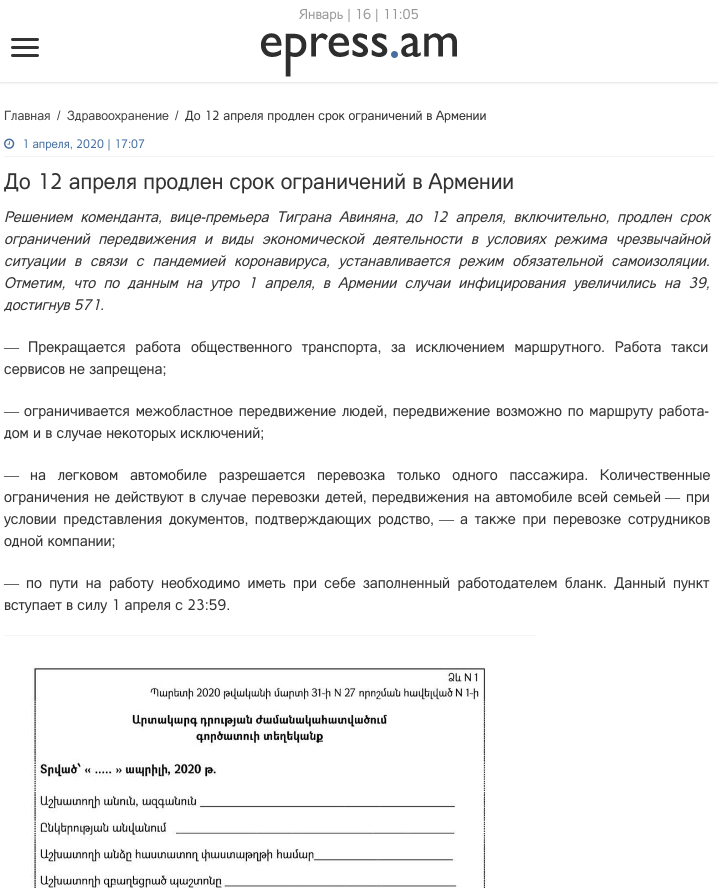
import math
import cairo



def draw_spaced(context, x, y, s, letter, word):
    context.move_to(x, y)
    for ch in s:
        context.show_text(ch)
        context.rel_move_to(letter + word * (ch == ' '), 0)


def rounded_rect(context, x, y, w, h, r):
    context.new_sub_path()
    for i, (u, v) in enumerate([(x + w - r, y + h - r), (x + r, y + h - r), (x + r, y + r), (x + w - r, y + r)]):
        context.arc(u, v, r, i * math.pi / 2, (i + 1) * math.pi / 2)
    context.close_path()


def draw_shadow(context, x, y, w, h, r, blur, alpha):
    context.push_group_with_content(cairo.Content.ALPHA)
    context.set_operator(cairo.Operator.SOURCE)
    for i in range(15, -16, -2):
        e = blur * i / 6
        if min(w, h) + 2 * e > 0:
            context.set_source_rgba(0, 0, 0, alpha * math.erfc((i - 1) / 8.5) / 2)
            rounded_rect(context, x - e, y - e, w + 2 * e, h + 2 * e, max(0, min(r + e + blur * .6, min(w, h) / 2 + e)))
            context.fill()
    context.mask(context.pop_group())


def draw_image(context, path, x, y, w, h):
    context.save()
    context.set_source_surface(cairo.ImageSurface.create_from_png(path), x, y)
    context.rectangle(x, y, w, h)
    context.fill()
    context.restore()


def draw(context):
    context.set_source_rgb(1, 1, 1)
    context.paint()
    context.save()
    context.rectangle(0, 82, 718, 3)
    context.clip()
    context.set_source_rgb(202 / 255, 202 / 255, 202 / 255)
    draw_shadow(context, 0, 0, 718, 82, 0, 1.5, 1)
    context.restore()
    draw_image(context, "images/1.png", 261, 33, 196, 44)
    context.set_source_rgb(51 / 255, 51 / 255, 51 / 255)
    rounded_rect(context, 11, 38, 28, 3, 1.5)
    context.fill()
    rounded_rect(context, 11, 46, 28, 3, 1.5)
    context.fill()
    rounded_rect(context, 11, 54, 28, 3, 1.5)
    context.fill()
    context.set_source_rgb(242 / 255, 242 / 255, 242 / 255)
    context.rectangle(4, 156, 710, 1)
    context.fill()
    draw_image(context, "images/2.png", 4, 138, 11, 11)
    draw_image(context, "images/3.png", 4, 635, 532, 253)
    context.select_font_face("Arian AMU")
    context.set_font_size(14)
    context.set_source_rgb(153 / 255, 153 / 255, 153 / 255)
    context.move_to(299, 19)
    context.show_text("Январь | 16 | 11:05")
    context.set_font_size(13)
    context.set_source_rgb(68 / 255, 68 / 255, 68 / 255)
    context.move_to(4, 120)
    context.show_text("Главная")
    context.set_source_rgb(51 / 255, 51 / 255, 51 / 255)
    context.move_to(57, 120)
    context.show_text("/")
    context.set_source_rgb(68 / 255, 68 / 255, 68 / 255)
    context.move_to(67, 120)
    context.show_text("Здравоохранение")
    context.set_source_rgb(51 / 255, 51 / 255, 51 / 255)
    context.move_to(175, 120)
    context.show_text("/")
    context.move_to(185, 120)
    context.show_text("До 12 апреля продлен срок ограничений в Армении")
    context.set_font_size(12)
    context.set_source_rgb(70 / 255, 111 / 255, 161 / 255)
    context.move_to(22, 148)
    context.show_text("1 апреля, 2020 | 17:07")
    context.set_font_size(22)
    context.set_source_rgb(51 / 255, 51 / 255, 51 / 255)
    context.move_to(4, 189)
    context.show_text("До 12 апреля продлен срок ограничений в Армении")
    context.select_font_face("Arian AMU", cairo.FontSlant.ITALIC)
    context.set_font_size(15)
    draw_spaced(context, 4, 222, "Решением коменданта, вице-премьера Тиграна Авиняна, до 12 апреля, включительно, продлен срок", 0, 3.75)
    draw_spaced(context, 4, 244, "ограничений передвижения и виды экономической деятельности в условиях режима чрезвычайной", 0, 4.5)
    draw_spaced(context, 4, 266, "ситуации в связи с пандемией коронавируса, устанавливается режим обязательной самоизоляции.", 0, 4.75)
    draw_spaced(context, 4, 288, "Отметим, что по данным на утро 1 апреля, в Армении случаи инфицирования увеличились на 39,", 0, 4)
    context.move_to(4, 310)
    context.show_text("достигнув 571.")
    context.select_font_face("Liberation Serif")
    context.move_to(4, 352)
    context.show_text("—")
    context.select_font_face("Arian AMU")
    draw_spaced(context, 28, 352, "Прекращается работа общественного транспорта, за исключением маршрутного. Работа такси", 0, 5.5)
    context.move_to(4, 374)
    context.show_text("сервисов не запрещена;")
    context.select_font_face("Liberation Serif")
    context.move_to(4, 416)
    context.show_text("—")
    context.select_font_face("Arian AMU")
    draw_spaced(context, 24, 416, "ограничивается межобластное передвижение людей, передвижение возможно по маршруту работа-", 0, 1.5)
    context.move_to(4, 438)
    context.show_text("дом и в случае некоторых исключений;")
    context.select_font_face("Liberation Serif")
    context.move_to(4, 480)
    context.show_text("—")
    context.select_font_face("Arian AMU")
    draw_spaced(context, 30, 480, "на легковом автомобиле разрешается перевозка только одного пассажира. Количественные", 0, 7.5)
    draw_spaced(context, 4, 502, "ограничения не действуют в случае перевозки детей, передвижения на автомобиле всей семьей", 0, 1)
    context.select_font_face("Liberation Serif")
    context.move_to(665, 502)
    context.show_text("—")
    context.select_font_face("Arian AMU")
    context.move_to(686, 502)
    context.show_text("при")
    draw_spaced(context, 4, 524, "условии представления документов, подтверждающих родство,", 0, 2.5)
    context.select_font_face("Liberation Serif")
    context.move_to(439, 524)
    context.show_text("—")
    context.select_font_face("Arian AMU")
    draw_spaced(context, 460, 524, "а также при перевозке сотрудников", 0, 2.5)
    context.move_to(4, 546)
    context.show_text("одной компании;")
    context.select_font_face("Liberation Serif")
    context.move_to(4, 588)
    context.show_text("—")
    context.select_font_face("Arian AMU")
    draw_spaced(context, 26, 588, "по пути на работу необходимо иметь при себе заполненный работодателем бланк. Данный пункт", 0, 3.1)
    context.move_to(4, 610)
    context.show_text("вступает в силу 1 апреля с 23:59.")


surface = cairo.ImageSurface(cairo.Format.RGB24, 718, 888)
context = cairo.Context(surface)
options = cairo.FontOptions()
options.set_hint_metrics(cairo.HintMetrics.OFF)
options.set_hint_style(cairo.HintStyle.NONE)
context.set_font_options(options)
context.set_miter_limit(4)
draw(context)
surface.write_to_png("out.png")
